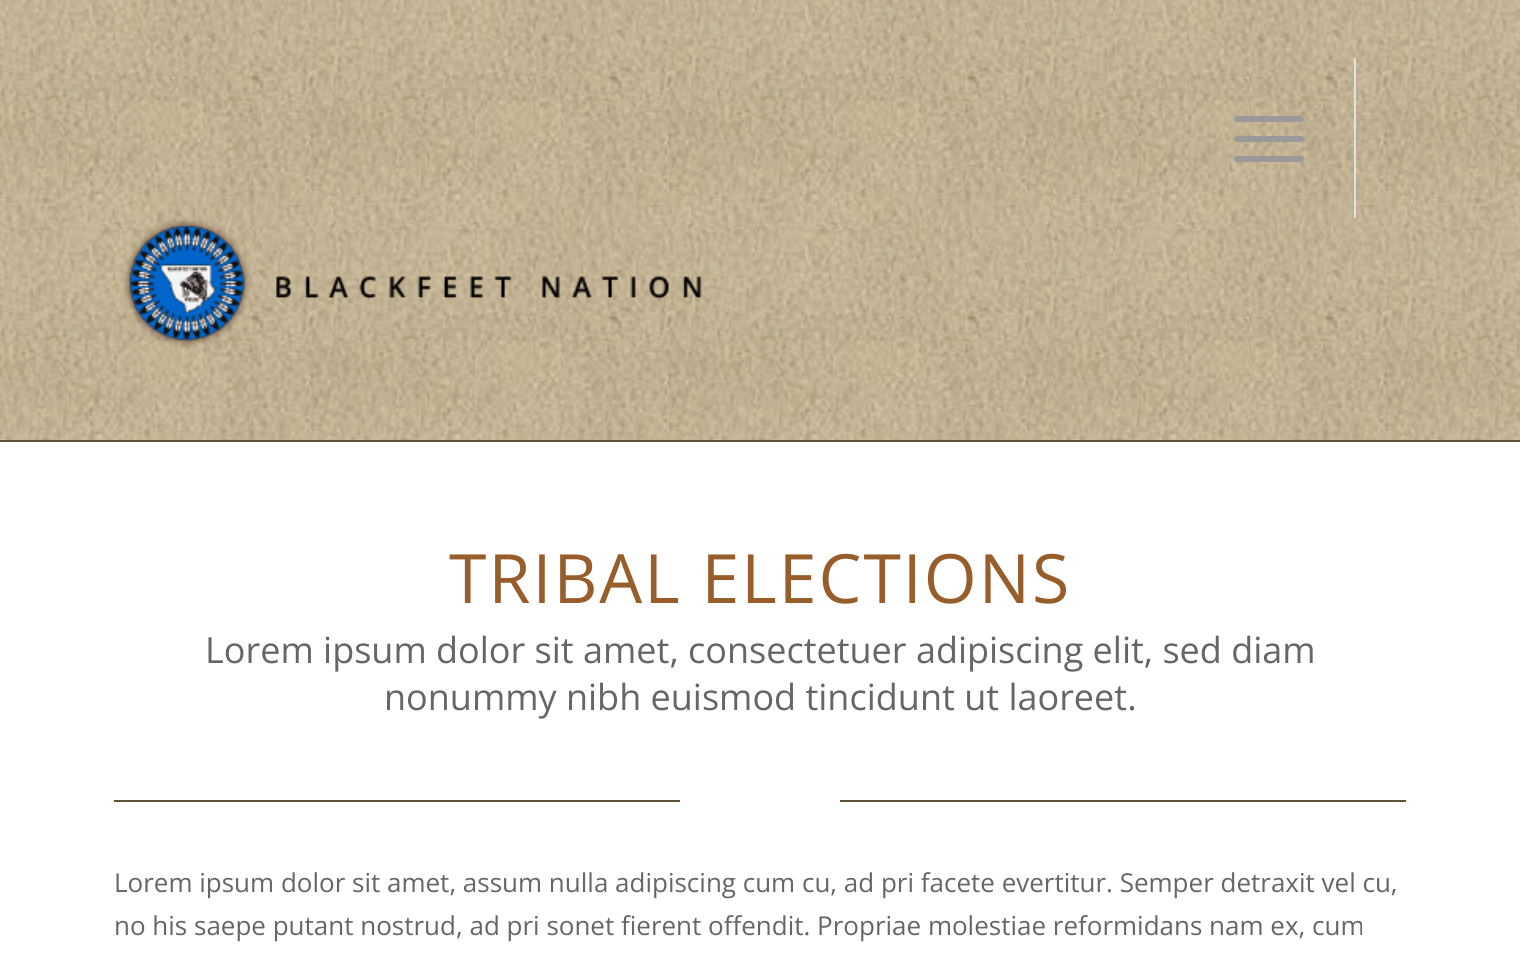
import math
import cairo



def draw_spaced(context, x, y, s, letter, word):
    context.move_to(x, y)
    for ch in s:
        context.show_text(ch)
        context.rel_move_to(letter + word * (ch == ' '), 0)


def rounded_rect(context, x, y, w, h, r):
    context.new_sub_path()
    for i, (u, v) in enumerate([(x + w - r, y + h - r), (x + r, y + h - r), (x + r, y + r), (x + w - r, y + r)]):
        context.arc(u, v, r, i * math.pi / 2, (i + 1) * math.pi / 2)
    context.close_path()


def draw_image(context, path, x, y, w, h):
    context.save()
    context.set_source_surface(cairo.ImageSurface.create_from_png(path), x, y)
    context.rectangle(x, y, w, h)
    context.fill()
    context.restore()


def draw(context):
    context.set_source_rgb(1, 1, 1)
    context.paint()
    draw_image(context, "images/1.png", 0, 0, 1520, 440)
    context.set_source_rgb(94 / 255, 83 / 255, 54 / 255)
    context.rectangle(0, 440, 1520, 2)
    context.fill()
    context.set_source_rgb(225 / 255, 225 / 255, 225 / 255)
    context.rectangle(1354, 58, 2, 160)
    context.fill()
    context.set_source_rgb(153 / 255, 153 / 255, 153 / 255)
    rounded_rect(context, 1234, 136, 70, 6, 3)
    context.fill()
    rounded_rect(context, 1234, 116, 70, 6, 3)
    context.fill()
    rounded_rect(context, 1234, 156, 70, 6, 3)
    context.fill()
    draw_image(context, "images/2.png", 122, 218, 580, 130)
    context.set_source_rgb(94 / 255, 83 / 255, 54 / 255)
    context.rectangle(114, 800, 1292, 2)
    context.fill()
    context.set_source_rgb(1, 1, 1)
    context.rectangle(680, 800, 160, 2)
    context.fill()
    context.select_font_face("Open Sans")
    context.set_font_size(68)
    context.set_source_rgb(151 / 255, 94 / 255, 43 / 255)
    draw_spaced(context, 449, 603, "TRIBAL ELECTIONS", 2, 0)
    context.set_font_size(36)
    context.set_source_rgb(102 / 255, 102 / 255, 102 / 255)
    context.move_to(205, 663)
    context.show_text("Lorem ipsum dolor sit amet, consectetuer adipiscing elit, sed diam")
    context.move_to(384, 710)
    context.show_text("nonummy nibh euismod tincidunt ut laoreet.")
    context.set_font_size(26)
    context.move_to(114, 892)
    context.show_text("Lorem ipsum dolor sit amet, assum nulla adipiscing cum cu, ad pri facete evertitur. Semper detraxit vel cu,")
    context.move_to(114, 935)
    context.show_text("no his saepe putant nostrud, ad pri sonet fierent offendit. Propriae molestiae reformidans nam ex, cum")


surface = cairo.ImageSurface(cairo.Format.RGB24, 1520, 953)
context = cairo.Context(surface)
options = cairo.FontOptions()
options.set_hint_metrics(cairo.HintMetrics.OFF)
options.set_hint_style(cairo.HintStyle.NONE)
context.set_font_options(options)
context.set_miter_limit(4)
draw(context)
surface.write_to_png("out.png")
